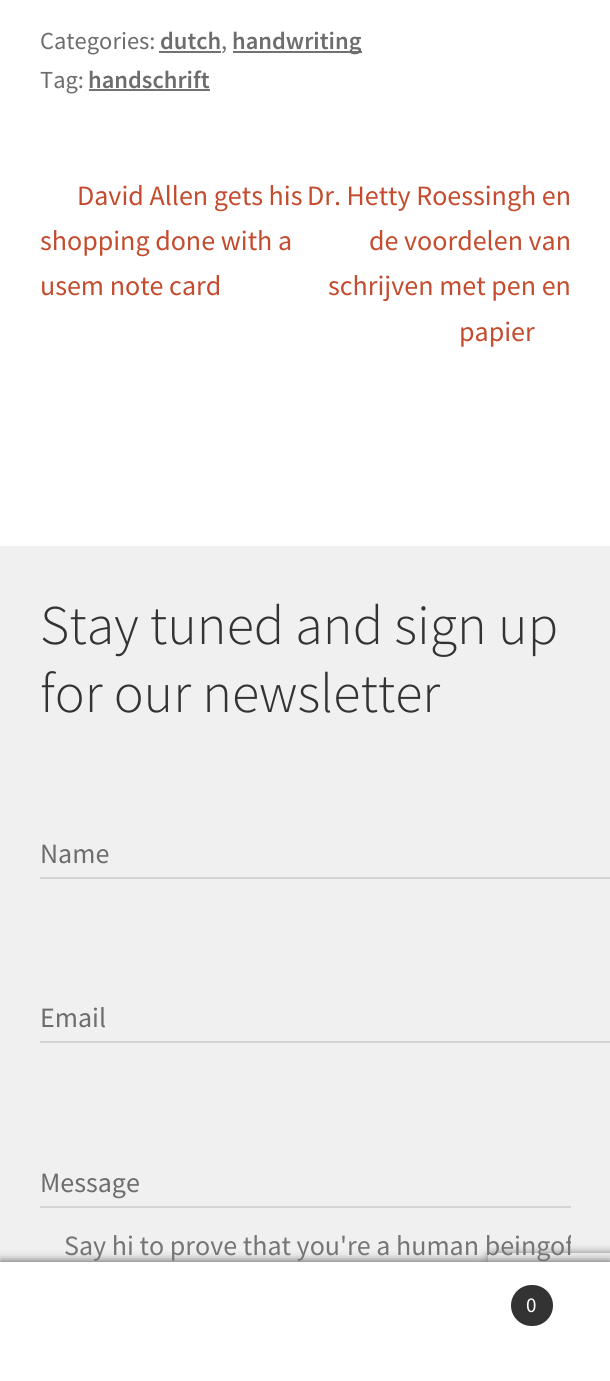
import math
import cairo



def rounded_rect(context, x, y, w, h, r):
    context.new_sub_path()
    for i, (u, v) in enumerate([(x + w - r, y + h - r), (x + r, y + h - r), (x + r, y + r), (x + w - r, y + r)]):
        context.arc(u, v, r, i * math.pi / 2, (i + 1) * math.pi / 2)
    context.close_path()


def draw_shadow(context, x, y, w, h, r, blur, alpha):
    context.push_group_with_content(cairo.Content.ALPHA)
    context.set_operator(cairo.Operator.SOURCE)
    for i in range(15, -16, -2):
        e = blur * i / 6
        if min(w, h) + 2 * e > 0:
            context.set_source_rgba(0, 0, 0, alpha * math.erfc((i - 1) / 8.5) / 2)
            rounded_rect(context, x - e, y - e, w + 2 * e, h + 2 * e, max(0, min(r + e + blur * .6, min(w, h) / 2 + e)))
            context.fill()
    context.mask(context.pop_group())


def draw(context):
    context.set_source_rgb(1, 1, 1)
    context.paint()
    context.set_source_rgb(114 / 255, 114 / 255, 114 / 255)
    context.rectangle(159, 51, 62, 2)
    context.fill()
    context.rectangle(233, 51, 129, 2)
    context.fill()
    context.rectangle(89, 89, 121, 2)
    context.fill()
    context.set_source_rgb(240 / 255, 240 / 255, 240 / 255)
    context.rectangle(0, 546, 610, 716)
    context.fill()
    context.set_source_rgb(212 / 255, 212 / 255, 212 / 255)
    context.rectangle(40, 877, 570, 2)
    context.fill()
    context.rectangle(40, 1041, 570, 2)
    context.fill()
    context.rectangle(40, 1206, 531, 2)
    context.fill()
    context.set_source_rgb(0, 0, 0)
    draw_shadow(context, 0, 1262, 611, 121, 0, 5, 0.7)
    context.save()
    context.set_fill_rule(cairo.FillRule.EVEN_ODD)
    context.new_path()
    context.move_to(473, 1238)
    context.line_to(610, 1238)
    context.line_to(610, 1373)
    context.line_to(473, 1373)
    context.close_path()
    context.move_to(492, 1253)
    context.line_to(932, 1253)
    context.curve_to(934, 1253, 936, 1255, 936, 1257)
    context.line_to(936, 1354)
    context.curve_to(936, 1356, 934, 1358, 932, 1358)
    context.line_to(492, 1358)
    context.curve_to(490, 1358, 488, 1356, 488, 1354)
    context.line_to(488, 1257)
    context.curve_to(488, 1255, 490, 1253, 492, 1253)
    context.close_path()
    context.clip()
    context.set_source_rgb(128 / 255, 128 / 255, 128 / 255)
    draw_shadow(context, 488, 1253, 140, 105, 4, 4.5, 1)
    context.restore()
    context.set_source_rgb(1, 1, 1)
    context.rectangle(0, 1262, 610, 2)
    context.fill()
    context.rectangle(0, 1264, 610, 117)
    context.fill()
    context.set_source_rgb(51 / 255, 51 / 255, 51 / 255)
    rounded_rect(context, 510, 1284, 44, 43, 21.5)
    context.fill_preserve()
    context.set_source_rgb(1, 1, 1)
    context.stroke()
    context.select_font_face("Source Sans Pro")
    context.set_font_size(24.5)
    context.set_source_rgb(109 / 255, 109 / 255, 109 / 255)
    context.move_to(40, 49)
    context.show_text("Categories:")
    context.select_font_face("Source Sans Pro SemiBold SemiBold")
    context.move_to(160, 49)
    context.show_text("dutch")
    context.select_font_face("Source Sans Pro")
    context.move_to(221, 49)
    context.show_text(",")
    context.select_font_face("Source Sans Pro SemiBold SemiBold")
    context.move_to(232, 49)
    context.show_text("handwriting")
    context.select_font_face("Source Sans Pro")
    context.move_to(40, 88)
    context.show_text("Tag:")
    context.select_font_face("Source Sans Pro SemiBold SemiBold")
    context.move_to(88, 88)
    context.show_text("handschrift")
    context.select_font_face("Source Sans Pro")
    context.set_font_size(28)
    context.set_source_rgb(196 / 255, 75 / 255, 45 / 255)
    context.move_to(77, 205)
    context.show_text("David Allen gets his")
    context.move_to(40, 250)
    context.show_text("shopping done with a")
    context.move_to(40, 295)
    context.show_text("usem note card")
    context.move_to(307, 205)
    context.show_text("Dr. Hetty Roessingh en")
    context.move_to(369, 250)
    context.show_text("de voordelen van")
    context.move_to(328, 295)
    context.show_text("schrijven met pen en")
    context.move_to(459, 341)
    context.show_text("papier")
    context.select_font_face("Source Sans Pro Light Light")
    context.set_font_size(56)
    context.set_source_rgb(51 / 255, 51 / 255, 51 / 255)
    context.move_to(40, 644)
    context.show_text("Stay tuned and sign up")
    context.move_to(40, 712)
    context.show_text("for our newsletter")
    context.select_font_face("Source Sans Pro")
    context.set_font_size(28)
    context.set_source_rgb(109 / 255, 109 / 255, 109 / 255)
    context.move_to(40, 863)
    context.show_text("Name")
    context.move_to(40, 1027)
    context.show_text("Email")
    context.move_to(40, 1192)
    context.show_text("Message")
    context.set_source_rgb(117 / 255, 117 / 255, 117 / 255)
    context.move_to(64, 1255)
    context.show_text("Say hi to prove that you're a human being")
    context.save()
    context.rectangle(40, 1206, 531, 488)
    context.clip()
    context.move_to(550, 1255)
    context.show_text("of")
    context.restore()
    context.set_font_size(21)
    context.set_source_rgb(1, 1, 1)
    context.move_to(526, 1312)
    context.show_text("0")


surface = cairo.ImageSurface(cairo.Format.RGB24, 610, 1381)
context = cairo.Context(surface)
options = cairo.FontOptions()
options.set_hint_metrics(cairo.HintMetrics.OFF)
options.set_hint_style(cairo.HintStyle.NONE)
context.set_font_options(options)
context.set_miter_limit(4)
draw(context)
surface.write_to_png("out.png")
